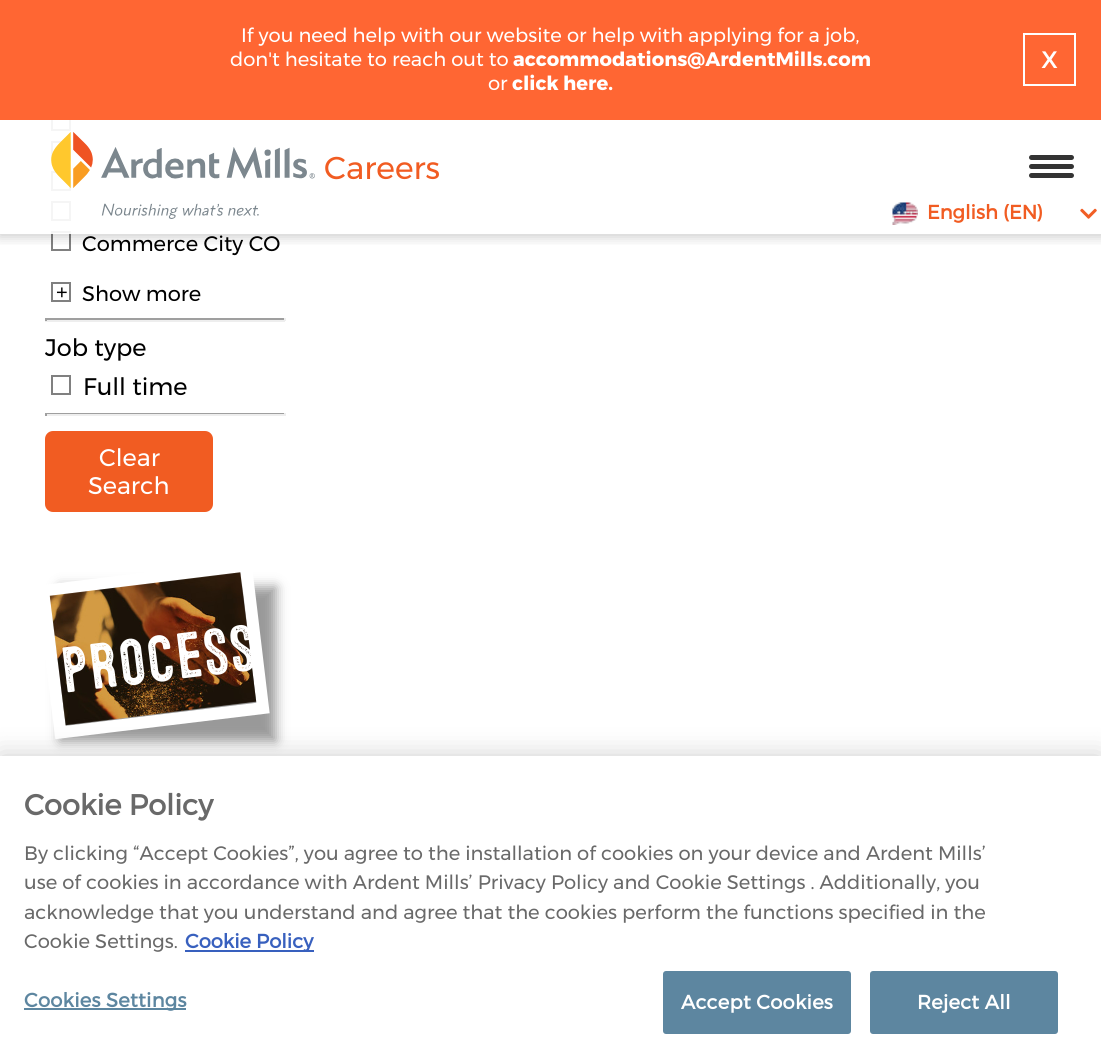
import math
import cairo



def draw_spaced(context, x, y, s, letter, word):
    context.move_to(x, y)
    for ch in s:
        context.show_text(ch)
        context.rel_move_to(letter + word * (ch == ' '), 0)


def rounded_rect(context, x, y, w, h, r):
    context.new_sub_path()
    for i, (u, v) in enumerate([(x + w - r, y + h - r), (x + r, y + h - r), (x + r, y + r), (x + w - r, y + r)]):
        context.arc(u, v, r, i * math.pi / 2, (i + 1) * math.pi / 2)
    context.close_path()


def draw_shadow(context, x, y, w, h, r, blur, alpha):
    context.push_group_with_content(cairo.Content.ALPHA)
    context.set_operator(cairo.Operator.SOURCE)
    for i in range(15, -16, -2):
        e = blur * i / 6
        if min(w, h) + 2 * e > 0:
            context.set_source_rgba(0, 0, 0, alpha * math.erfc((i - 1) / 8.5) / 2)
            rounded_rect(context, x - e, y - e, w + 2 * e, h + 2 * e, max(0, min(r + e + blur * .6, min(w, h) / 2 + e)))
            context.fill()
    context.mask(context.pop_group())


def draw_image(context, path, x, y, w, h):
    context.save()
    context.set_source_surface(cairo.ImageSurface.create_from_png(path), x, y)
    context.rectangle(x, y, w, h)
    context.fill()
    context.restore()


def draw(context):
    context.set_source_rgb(1, 1, 1)
    context.paint()
    context.rectangle(52, 112, 18, 18)
    context.set_source_rgb(128 / 255, 128 / 255, 128 / 255)
    context.stroke()
    context.rectangle(52, 142, 18, 18)
    context.stroke()
    context.rectangle(52, 172, 18, 18)
    context.stroke()
    context.rectangle(52, 202, 18, 18)
    context.stroke()
    context.rectangle(52, 232, 18, 18)
    context.stroke()
    context.save()
    context.rectangle(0, 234, 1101, 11)
    context.clip()
    context.set_source_rgb(0, 0, 0)
    draw_shadow(context, -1, 0, 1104, 237, 0, 6, 0.2)
    context.restore()
    context.set_source_rgb(1, 102 / 255, 51 / 255)
    context.rectangle(0, 0, 1101, 120)
    context.fill()
    context.rectangle(1024, 34, 51, 51)
    context.set_source_rgb(1, 1, 1)
    context.stroke()
    context.set_source_rgba(1, 1, 1, 0.92)
    context.rectangle(51, 120, 20, 114)
    context.fill()
    draw_image(context, "images/1.png", 51, 132, 264, 87)
    context.set_source_rgb(51 / 255, 51 / 255, 51 / 255)
    rounded_rect(context, 1029, 155, 45, 5, 2.5)
    context.fill()
    rounded_rect(context, 1029, 164, 45, 5, 2.5)
    context.fill()
    rounded_rect(context, 1029, 173, 45, 5, 2.5)
    context.fill()
    draw_image(context, "images/2.png", 892, 202, 26, 23)
    draw_image(context, "images/3.png", 1080, 208, 17, 11)
    context.rectangle(52, 283, 18, 18)
    context.set_source_rgb(128 / 255, 128 / 255, 128 / 255)
    context.stroke()
    context.set_source_rgb(159 / 255, 159 / 255, 159 / 255)
    context.rectangle(45, 318, 240, 2)
    context.fill()
    context.set_source_rgb(238 / 255, 238 / 255, 238 / 255)
    context.rectangle(284, 318, 2, 3)
    context.fill()
    context.rectangle(45, 320, 240, 2)
    context.fill()
    context.set_source_rgb(159 / 255, 159 / 255, 159 / 255)
    context.rectangle(45, 318, 2, 3)
    context.fill()
    context.rectangle(52, 376, 18, 18)
    context.set_source_rgb(128 / 255, 128 / 255, 128 / 255)
    context.stroke()
    context.set_source_rgb(159 / 255, 159 / 255, 159 / 255)
    context.rectangle(45, 413, 240, 1)
    context.fill()
    context.set_source_rgb(238 / 255, 238 / 255, 238 / 255)
    context.rectangle(284, 413, 2, 3)
    context.fill()
    context.rectangle(45, 414, 240, 2)
    context.fill()
    context.set_source_rgb(159 / 255, 159 / 255, 159 / 255)
    context.rectangle(45, 413, 2, 3)
    context.fill()
    context.set_source_rgb(241 / 255, 92 / 255, 34 / 255)
    rounded_rect(context, 46.5, 432.5, 165, 78, 6.5)
    context.fill_preserve()
    context.set_line_width(3)
    context.stroke()
    context.set_source_rgb(0, 0, 0)
    draw_shadow(context, 60, 587, 216, 154, 0, 6, 0.4)
    context.new_path()
    context.move_to(43, 591)
    context.line_to(246, 566)
    context.line_to(263, 708)
    context.line_to(60.5, 732.5)
    context.close_path()
    context.set_source_rgb(1, 1, 1)
    context.set_line_width(12)
    context.stroke()
    draw_image(context, "images/4.png", 49, 572, 208, 154)
    context.set_source_rgb(0, 0, 0)
    draw_shadow(context, 0, 756, 1101, 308, 0, 13.5, 0.2)
    context.set_source_rgb(1, 1, 1)
    context.rectangle(0, 756, 1101, 307)
    context.fill()
    context.set_source_rgb(56 / 255, 96 / 255, 190 / 255)
    context.rectangle(185, 950, 129, 2)
    context.fill()
    context.set_source_rgb(93 / 255, 134 / 255, 160 / 255)
    context.rectangle(24, 1008, 162, 2)
    context.fill()
    rounded_rect(context, 664, 972, 186, 61, 2)
    context.fill_preserve()
    context.set_line_width(2)
    context.stroke()
    rounded_rect(context, 871, 972, 186, 61, 2)
    context.fill_preserve()
    context.stroke()
    context.select_font_face("Montserrat")
    context.set_font_size(19.5)
    context.set_source_rgb(1, 1, 1)
    context.move_to(241, 42)
    context.show_text("If you need help with our website or help with applying for a job,")
    context.move_to(230, 66)
    context.show_text("don't hesitate to reach out to")
    context.select_font_face("Montserrat", cairo.FontSlant.NORMAL, cairo.FontWeight.BOLD)
    context.move_to(513, 66)
    context.show_text("accommodations@ArdentMills.com")
    context.select_font_face("Montserrat")
    context.move_to(488, 90)
    context.show_text("or")
    context.select_font_face("Montserrat", cairo.FontSlant.NORMAL, cairo.FontWeight.BOLD)
    context.move_to(512, 90)
    context.show_text("click here.")
    context.select_font_face("Montserrat")
    context.set_font_size(31.5)
    context.move_to(1041, 68)
    context.show_text("x")
    context.set_source_rgb(241 / 255, 92 / 255, 34 / 255)
    context.move_to(324, 179)
    context.show_text("Careers")
    context.select_font_face("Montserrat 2", cairo.FontSlant.NORMAL, cairo.FontWeight.BOLD)
    context.set_font_size(19.5)
    context.move_to(927, 219)
    context.show_text("English (EN)")
    context.select_font_face("Montserrat")
    context.set_font_size(21)
    context.set_source_rgb(0, 0, 0)
    context.move_to(82, 251)
    context.show_text("Commerce City CO")
    context.select_font_face("Liberation Sans")
    context.set_font_size(20)
    context.move_to(56, 299)
    context.show_text("+")
    context.select_font_face("Montserrat")
    context.set_font_size(21)
    context.move_to(82, 301)
    context.show_text("Show more")
    context.set_font_size(24)
    context.move_to(45, 356)
    context.show_text("Job type")
    context.move_to(83, 395)
    context.show_text("Full time")
    context.set_source_rgb(1, 1, 1)
    context.move_to(99, 466)
    context.show_text("Clear")
    context.move_to(88, 494)
    context.show_text("Search")
    context.select_font_face("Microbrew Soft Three")
    context.set_font_size(64.5)
    context.save()
    context.translate(63, 693)
    context.rotate(-7 * math.pi / 180)
    context.move_to(0, 0)
    context.show_text("process")
    context.restore()
    context.select_font_face("Montserrat 2", cairo.FontSlant.NORMAL, cairo.FontWeight.BOLD)
    context.set_font_size(28.75)
    context.set_source_rgb(105 / 255, 105 / 255, 105 / 255)
    context.move_to(24, 815)
    context.show_text("Cookie Policy")
    context.select_font_face("Montserrat")
    context.set_font_size(19.5)
    context.move_to(24, 860)
    context.show_text("By clicking “Accept Cookies”, you agree to the installation of cookies on your device and Ardent Mills’")
    context.move_to(24, 889)
    context.show_text("use of cookies in accordance with Ardent Mills’ Privacy Policy and Cookie Settings . Additionally, you")
    context.move_to(24, 919)
    context.show_text("acknowledge that you understand and agree that the cookies perform the functions specified in the")
    context.move_to(24, 948)
    context.show_text("Cookie Settings.")
    context.select_font_face("Montserrat 2", cairo.FontSlant.NORMAL, cairo.FontWeight.BOLD)
    context.set_source_rgb(56 / 255, 96 / 255, 190 / 255)
    context.move_to(185, 948)
    context.show_text("Cookie Policy")
    context.set_source_rgb(93 / 255, 134 / 255, 160 / 255)
    draw_spaced(context, 24, 1007, "Cookies Settings", 0.25, 0)
    context.set_source_rgb(1, 1, 1)
    draw_spaced(context, 681, 1009, "Accept Cookies", 0.25, 0)
    draw_spaced(context, 917, 1009, "Reject All", 0.25, 0)


surface = cairo.ImageSurface(cairo.Format.RGB24, 1101, 1063)
context = cairo.Context(surface)
options = cairo.FontOptions()
options.set_hint_metrics(cairo.HintMetrics.OFF)
options.set_hint_style(cairo.HintStyle.NONE)
context.set_font_options(options)
context.set_miter_limit(4)
draw(context)
surface.write_to_png("out.png")
